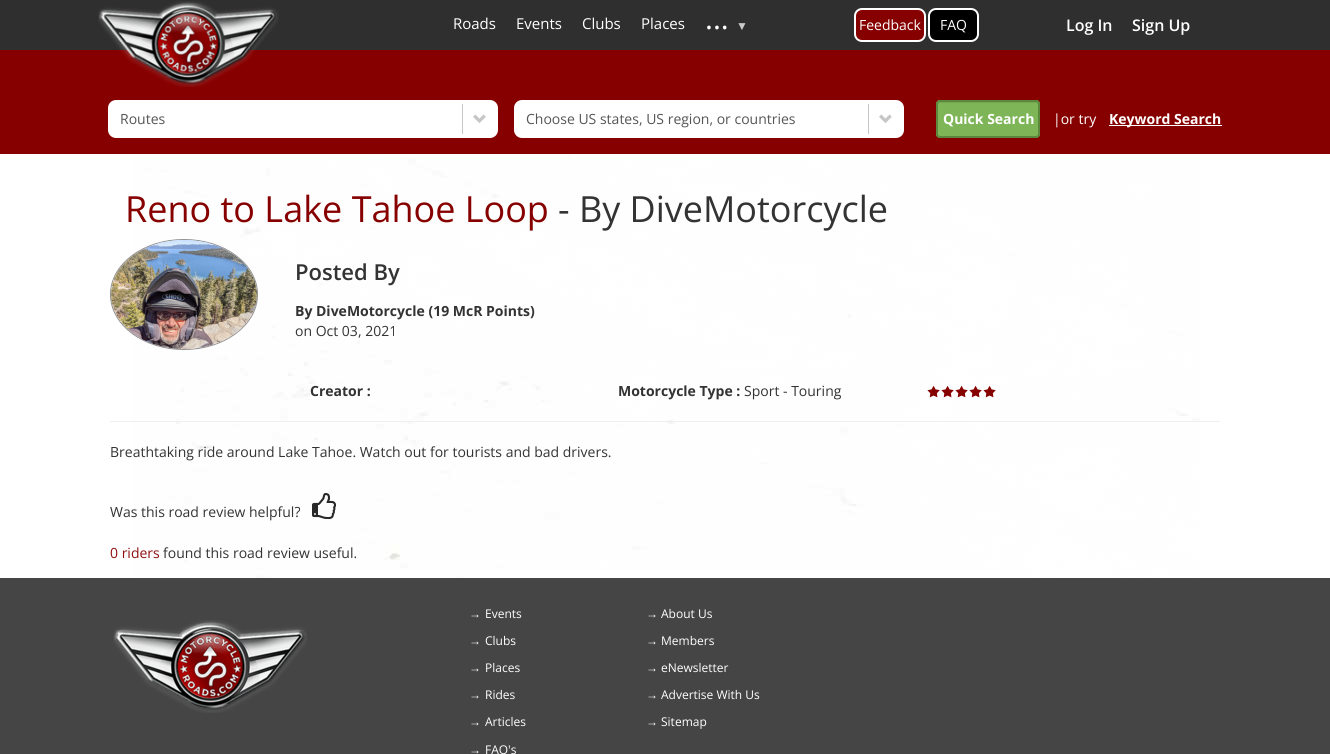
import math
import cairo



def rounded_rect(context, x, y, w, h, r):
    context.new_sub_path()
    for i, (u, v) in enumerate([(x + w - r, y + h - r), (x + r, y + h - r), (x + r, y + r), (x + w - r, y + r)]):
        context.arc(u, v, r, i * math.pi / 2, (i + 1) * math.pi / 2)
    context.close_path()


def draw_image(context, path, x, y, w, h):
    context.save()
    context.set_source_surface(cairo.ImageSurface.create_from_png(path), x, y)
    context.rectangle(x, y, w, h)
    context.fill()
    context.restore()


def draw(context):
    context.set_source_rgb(1, 1, 1)
    context.paint()
    draw_image(context, "images/1.png", 133, 154, 1067, 424)
    context.set_source_rgb(47 / 255, 47 / 255, 47 / 255)
    context.rectangle(0, 0, 1330, 50)
    context.fill()
    context.set_source_rgb(135 / 255, 0, 0)
    rounded_rect(context, 855, 9, 70, 32, 7)
    context.fill_preserve()
    context.set_source_rgb(1, 1, 1)
    context.stroke()
    context.set_source_rgb(0, 0, 0)
    rounded_rect(context, 929, 9, 49, 32, 7)
    context.fill_preserve()
    context.set_source_rgb(1, 1, 1)
    context.stroke()
    context.set_source_rgb(135 / 255, 0, 0)
    context.rectangle(0, 50, 1330, 104)
    context.fill()
    draw_image(context, "images/2.png", 98, 1, 181, 86)
    context.set_source_rgb(1, 1, 1)
    rounded_rect(context, 108, 100, 390, 38, 8)
    context.fill()
    context.set_source_rgb(198 / 255, 198 / 255, 198 / 255)
    context.rectangle(462, 104, 1, 30)
    context.fill()
    draw_image(context, "images/3.png", 473, 114, 13, 9)
    context.set_source_rgb(1, 1, 1)
    rounded_rect(context, 514, 100, 390, 38, 8)
    context.fill()
    context.set_source_rgb(198 / 255, 198 / 255, 198 / 255)
    context.rectangle(868, 104, 1, 30)
    context.fill()
    draw_image(context, "images/3.png", 879, 114, 13, 9)
    context.set_source_rgb(125 / 255, 181 / 255, 87 / 255)
    rounded_rect(context, 936, 100, 104, 38, 4)
    context.fill()
    context.set_source_rgb(116 / 255, 167 / 255, 80 / 255)
    context.new_path()
    context.move_to(940, 103)
    context.line_to(1036, 103)
    context.curve_to(1037, 103, 1038, 104, 1038, 105)
    context.curve_to(1038, 104, 1038, 102, 1036, 102)
    context.line_to(956, 102)
    context.curve_to(955, 102, 938, 98, 938, 105)
    context.curve_to(938, 104, 939, 103, 940, 103)
    context.close_path()
    context.fill()
    rounded_rect(context, 937, 101, 102, 36, 3)
    context.set_source_rgb(91 / 255, 136 / 255, 61 / 255)
    context.stroke()
    context.set_source_rgb(1, 1, 1)
    context.rectangle(1109, 125, 113, 1)
    context.fill()
    context.new_path()
    context.move_to(184, 239.5)
    context.curve_to(224.5, 239.5, 257.5, 264, 257.5, 294.5)
    context.curve_to(257.5, 325, 224.5, 349.5, 184, 349.5)
    context.curve_to(143.5, 349.5, 110.5, 325, 110.5, 294.5)
    context.curve_to(110.5, 264, 143.5, 239.5, 184, 239.5)
    context.close_path()
    context.set_source_rgb(144 / 255, 144 / 255, 144 / 255)
    context.set_line_width(1)
    context.stroke()
    draw_image(context, "images/4.png", 111, 240, 146, 109)
    draw_image(context, "images/5.png", 927, 385, 13, 13)
    draw_image(context, "images/6.png", 941, 385, 13, 13)
    draw_image(context, "images/7.png", 955, 385, 13, 13)
    draw_image(context, "images/8.png", 969, 385, 13, 13)
    draw_image(context, "images/9.png", 983, 385, 13, 13)
    context.set_source_rgb(239 / 255, 239 / 255, 239 / 255)
    context.rectangle(110, 421, 1110, 1)
    context.fill()
    draw_image(context, "images/10.png", 312, 493, 24, 26)
    context.set_source_rgb(70 / 255, 69 / 255, 69 / 255)
    context.rectangle(0, 578, 1330, 176)
    context.fill()
    draw_image(context, "images/11.png", 113, 620, 194, 93)
    context.select_font_face("Open Sans")
    context.set_font_size(15)
    context.set_source_rgb(1, 1, 1)
    context.move_to(453, 29)
    context.show_text("Roads")
    context.move_to(516, 29)
    context.show_text("Events")
    context.move_to(582, 29)
    context.show_text("Clubs")
    context.move_to(641, 29)
    context.show_text("Places")
    context.set_font_size(30)
    context.move_to(705, 29)
    context.show_text("...")
    context.select_font_face("Liberation Serif")
    context.set_font_size(12)
    context.set_source_rgb(203 / 255, 203 / 255, 203 / 255)
    context.move_to(736, 30)
    context.show_text("▼")
    context.select_font_face("Open Sans")
    context.set_font_size(14)
    context.set_source_rgb(1, 1, 1)
    context.move_to(859, 30)
    context.show_text("Feedback")
    context.move_to(940, 30)
    context.show_text("FAQ")
    context.select_font_face("Open Sans SemiBold")
    context.set_font_size(16)
    context.move_to(1066, 31)
    context.show_text("Log In")
    context.move_to(1132, 31)
    context.show_text("Sign Up")
    context.select_font_face("Open Sans")
    context.set_font_size(14)
    context.set_source_rgb(85 / 255, 85 / 255, 85 / 255)
    context.move_to(120, 124)
    context.show_text("Routes")
    context.move_to(526, 124)
    context.show_text("Choose US states, US region, or countries")
    context.select_font_face("Open Sans", cairo.FontSlant.NORMAL, cairo.FontWeight.BOLD)
    context.set_source_rgb(1, 1, 1)
    context.move_to(943, 124)
    context.show_text("Quick Search")
    context.select_font_face("Open Sans")
    context.move_to(1053, 124)
    context.show_text("|or try")
    context.select_font_face("Open Sans", cairo.FontSlant.NORMAL, cairo.FontWeight.BOLD)
    context.move_to(1109, 124)
    context.show_text("Keyword Search")
    context.select_font_face("Open Sans")
    context.set_font_size(36)
    context.set_source_rgb(135 / 255, 0, 0)
    context.move_to(125, 222)
    context.show_text("Reno to Lake Tahoe Loop")
    context.set_source_rgb(51 / 255, 51 / 255, 51 / 255)
    context.move_to(558, 222)
    context.show_text("- By DiveMotorcycle")
    context.select_font_face("Open Sans SemiBold")
    context.set_font_size(22)
    context.move_to(295, 280)
    context.show_text("Posted By")
    context.select_font_face("Open Sans", cairo.FontSlant.NORMAL, cairo.FontWeight.BOLD)
    context.set_font_size(14)
    context.move_to(295, 316)
    context.show_text("By DiveMotorcycle (19 McR Points)")
    context.select_font_face("Open Sans")
    context.move_to(295, 336)
    context.show_text("on Oct 03, 2021")
    context.select_font_face("Open Sans", cairo.FontSlant.NORMAL, cairo.FontWeight.BOLD)
    context.move_to(310, 396)
    context.show_text("Creator :")
    context.move_to(618, 396)
    context.show_text("Motorcycle Type :")
    context.select_font_face("Open Sans")
    context.move_to(744, 396)
    context.show_text("Sport - Touring")
    context.move_to(110, 457)
    context.show_text("Breathtaking ride around Lake Tahoe. Watch out for tourists and bad drivers.")
    context.move_to(110, 517)
    context.show_text("Was this road review helpful?")
    context.set_source_rgb(142 / 255, 16 / 255, 16 / 255)
    context.move_to(110, 558)
    context.show_text("0 riders")
    context.set_source_rgb(51 / 255, 51 / 255, 51 / 255)
    context.move_to(163, 558)
    context.show_text("found this road review useful.")
    context.select_font_face("Liberation Serif")
    context.set_font_size(12)
    context.set_source_rgb(1, 1, 1)
    context.move_to(469, 618)
    context.show_text("→")
    context.select_font_face("Open Sans")
    context.move_to(485, 618)
    context.show_text("Events")
    context.select_font_face("Liberation Serif")
    context.move_to(646, 618)
    context.show_text("→")
    context.select_font_face("Open Sans")
    context.move_to(661, 618)
    context.show_text("About Us")
    context.select_font_face("Liberation Serif")
    context.move_to(469, 645)
    context.show_text("→")
    context.select_font_face("Open Sans")
    context.move_to(485, 645)
    context.show_text("Clubs")
    context.select_font_face("Liberation Serif")
    context.move_to(646, 645)
    context.show_text("→")
    context.select_font_face("Open Sans")
    context.move_to(661, 645)
    context.show_text("Members")
    context.select_font_face("Liberation Serif")
    context.move_to(469, 672)
    context.show_text("→")
    context.select_font_face("Open Sans")
    context.move_to(485, 672)
    context.show_text("Places")
    context.select_font_face("Liberation Serif")
    context.move_to(646, 672)
    context.show_text("→")
    context.select_font_face("Open Sans")
    context.move_to(661, 672)
    context.show_text("eNewsletter")
    context.select_font_face("Liberation Serif")
    context.move_to(469, 699)
    context.show_text("→")
    context.select_font_face("Open Sans")
    context.move_to(485, 699)
    context.show_text("Rides")
    context.select_font_face("Liberation Serif")
    context.move_to(646, 699)
    context.show_text("→")
    context.select_font_face("Open Sans")
    context.move_to(661, 699)
    context.show_text("Advertise With Us")
    context.select_font_face("Liberation Serif")
    context.move_to(469, 726)
    context.show_text("→")
    context.select_font_face("Open Sans")
    context.move_to(485, 726)
    context.show_text("Articles")
    context.select_font_face("Liberation Serif")
    context.move_to(646, 726)
    context.show_text("→")
    context.select_font_face("Open Sans")
    context.move_to(661, 726)
    context.show_text("Sitemap")
    context.select_font_face("Liberation Serif")
    context.move_to(469, 754)
    context.show_text("→")
    context.select_font_face("Open Sans")
    context.move_to(485, 754)
    context.show_text("FAQ's")


surface = cairo.ImageSurface(cairo.Format.RGB24, 1330, 754)
context = cairo.Context(surface)
options = cairo.FontOptions()
options.set_hint_metrics(cairo.HintMetrics.OFF)
options.set_hint_style(cairo.HintStyle.NONE)
context.set_font_options(options)
context.set_miter_limit(4)
draw(context)
surface.write_to_png("out.png")
